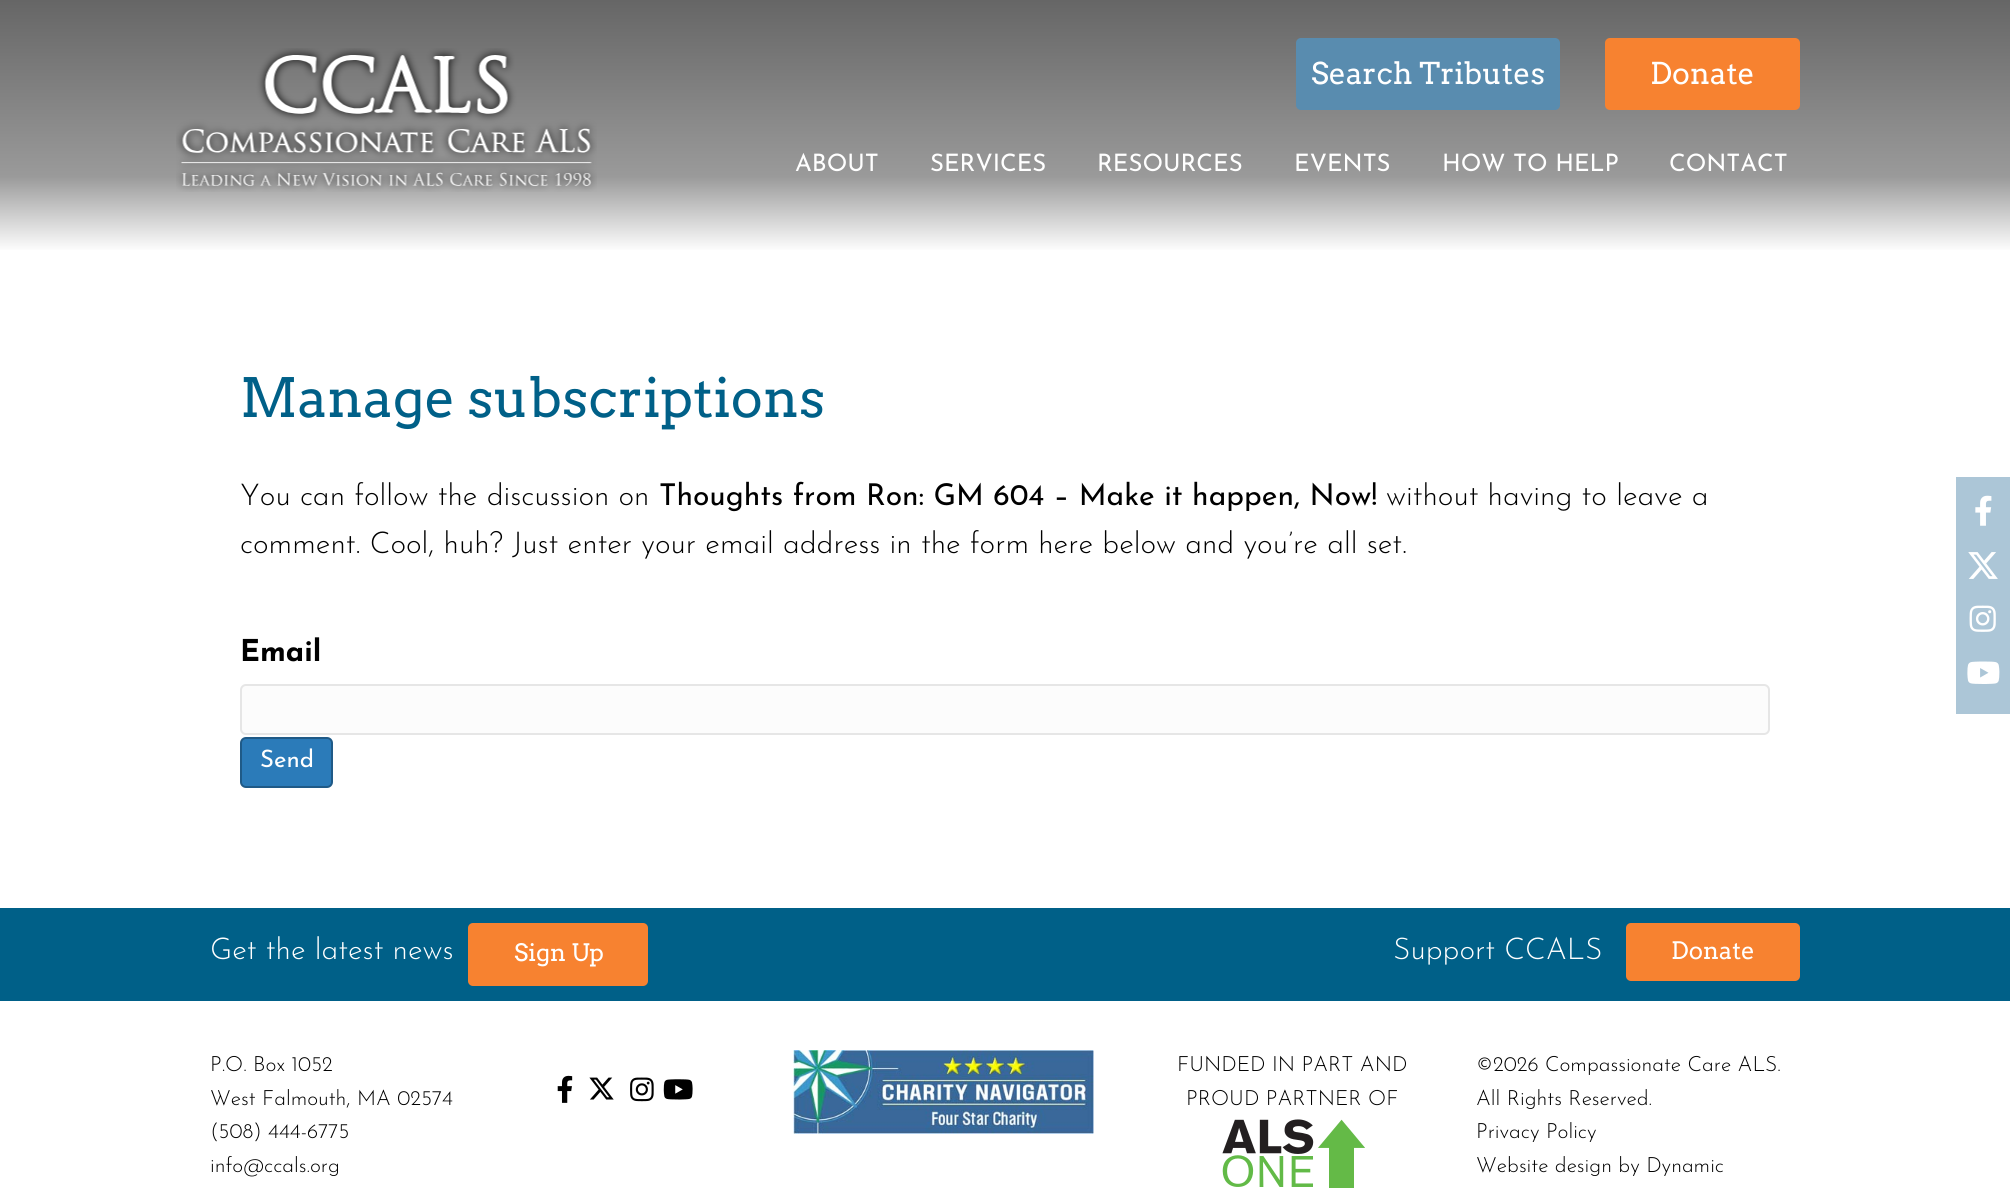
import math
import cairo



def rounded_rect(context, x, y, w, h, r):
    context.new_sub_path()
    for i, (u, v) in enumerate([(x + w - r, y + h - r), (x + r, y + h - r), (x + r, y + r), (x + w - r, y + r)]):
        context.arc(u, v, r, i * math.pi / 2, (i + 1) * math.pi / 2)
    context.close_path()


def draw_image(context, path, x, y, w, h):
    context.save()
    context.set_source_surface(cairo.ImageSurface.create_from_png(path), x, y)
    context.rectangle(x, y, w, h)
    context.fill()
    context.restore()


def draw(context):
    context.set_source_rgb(1, 1, 1)
    context.paint()
    gradient = cairo.LinearGradient(1005, 0, 1005, 252)
    gradient.add_color_stop_rgba(0, 102 / 255, 102 / 255, 102 / 255, 1)
    gradient.add_color_stop_rgba(0.7, 154 / 255, 154 / 255, 154 / 255, 1)
    gradient.add_color_stop_rgba(1, 1, 1, 1, 1)
    context.set_source(gradient)
    context.rectangle(0, 0, 2010, 250)
    context.fill()
    draw_image(context, "images/1.png", 176, 48, 421, 144)
    context.set_source_rgb(89 / 255, 140 / 255, 175 / 255)
    rounded_rect(context, 1296, 38, 264, 72, 5)
    context.fill()
    context.set_source_rgb(247 / 255, 130 / 255, 48 / 255)
    rounded_rect(context, 1605, 38, 195, 72, 5)
    context.fill()
    context.set_source_rgb(252 / 255, 252 / 255, 252 / 255)
    rounded_rect(context, 241, 685, 1528, 49, 5)
    context.fill_preserve()
    context.set_source_rgb(230 / 255, 230 / 255, 230 / 255)
    context.stroke()
    context.set_source_rgb(43 / 255, 123 / 255, 185 / 255)
    rounded_rect(context, 241, 738, 91, 49, 5)
    context.fill_preserve()
    context.set_source_rgb(31 / 255, 90 / 255, 135 / 255)
    context.stroke()
    context.set_source_rgb(172 / 255, 198 / 255, 215 / 255)
    context.rectangle(1956, 477, 54, 237)
    context.fill()
    draw_image(context, "images/2.png", 1975, 495, 17, 31)
    draw_image(context, "images/3.png", 1968, 552, 30, 27)
    draw_image(context, "images/4.png", 1969, 605, 27, 27)
    draw_image(context, "images/5.png", 1967, 661, 33, 23)
    context.set_source_rgb(0, 96 / 255, 136 / 255)
    context.rectangle(0, 908, 2010, 93)
    context.fill()
    context.set_source_rgb(247 / 255, 130 / 255, 48 / 255)
    rounded_rect(context, 468, 923, 180, 63, 5)
    context.fill()
    rounded_rect(context, 1626, 923, 174, 58, 5)
    context.fill()
    draw_image(context, "images/6.png", 557, 1075, 16, 28)
    draw_image(context, "images/7.png", 589, 1077, 25, 23)
    draw_image(context, "images/8.png", 630, 1077, 24, 25)
    draw_image(context, "images/9.png", 663, 1079, 30, 21)
    draw_image(context, "images/10.png", 793, 1050, 301, 84)
    draw_image(context, "images/11.png", 1222, 1119, 143, 69)
    context.select_font_face("Arvo")
    context.set_font_size(30)
    context.set_source_rgb(1, 1, 1)
    context.move_to(1311, 84)
    context.show_text("Search Tributes")
    context.move_to(1650, 84)
    context.show_text("Donate")
    context.select_font_face("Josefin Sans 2 Thin")
    context.set_font_size(24)
    context.move_to(795, 171)
    context.show_text("ABOUT")
    context.move_to(930, 171)
    context.show_text("SERVICES")
    context.move_to(1097, 171)
    context.show_text("RESOURCES")
    context.move_to(1294, 171)
    context.show_text("EVENTS")
    context.move_to(1442, 171)
    context.show_text("HOW TO HELP")
    context.move_to(1669, 171)
    context.show_text("CONTACT")
    context.select_font_face("Arvo")
    context.set_font_size(54)
    context.set_source_rgb(0, 96 / 255, 136 / 255)
    context.move_to(240, 417)
    context.show_text("Manage subscriptions")
    context.select_font_face("Josefin Sans Thin")
    context.set_font_size(30)
    context.set_source_rgb(0, 0, 0)
    context.move_to(240, 505)
    context.show_text("You can follow the discussion on")
    context.select_font_face("Josefin Sans 2 Thin")
    context.move_to(659, 505)
    context.show_text("Thoughts from Ron: GM 604 – Make it happen, Now!")
    context.select_font_face("Josefin Sans Thin")
    context.move_to(1386, 505)
    context.show_text("without having to leave a")
    context.move_to(240, 553)
    context.show_text("comment. Cool, huh? Just enter your email address in the form here below and you’re all set.")
    context.select_font_face("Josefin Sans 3 Thin")
    context.move_to(240, 661)
    context.show_text("Email")
    context.select_font_face("Josefin Sans 2 Thin")
    context.set_font_size(24)
    context.set_source_rgb(1, 1, 1)
    context.move_to(260, 767)
    context.show_text("Send")
    context.select_font_face("Josefin Sans Thin")
    context.set_font_size(30)
    context.move_to(210, 959)
    context.show_text("Get the latest news")
    context.select_font_face("Arvo")
    context.set_font_size(24)
    context.move_to(514, 961)
    context.show_text("Sign Up")
    context.select_font_face("Josefin Sans Thin")
    context.set_font_size(30)
    context.move_to(1393, 959)
    context.show_text("Support CCALS")
    context.select_font_face("Arvo")
    context.set_font_size(24)
    context.move_to(1671, 959)
    context.show_text("Donate")
    context.select_font_face("Josefin Sans Thin")
    context.set_font_size(21)
    context.set_source_rgb(0, 0, 0)
    context.move_to(210, 1071)
    context.show_text("P.O. Box 1052")
    context.move_to(210, 1105)
    context.show_text("West Falmouth, MA 02574")
    context.move_to(210, 1138)
    context.show_text("(508) 444-6775")
    context.move_to(210, 1172)
    context.show_text("info@ccals.org")
    context.move_to(1177, 1071)
    context.show_text("FUNDED IN PART AND")
    context.move_to(1186, 1105)
    context.show_text("PROUD PARTNER OF")
    context.move_to(1476, 1071)
    context.show_text("©2026 Compassionate Care ALS.")
    context.move_to(1476, 1105)
    context.show_text("All Rights Reserved.")
    context.move_to(1476, 1138)
    context.show_text("Privacy Policy")
    context.move_to(1476, 1172)
    context.show_text("Website design by Dynamic")


surface = cairo.ImageSurface(cairo.Format.RGB24, 2010, 1189)
context = cairo.Context(surface)
options = cairo.FontOptions()
options.set_hint_metrics(cairo.HintMetrics.OFF)
options.set_hint_style(cairo.HintStyle.NONE)
context.set_font_options(options)
context.set_miter_limit(4)
draw(context)
surface.write_to_png("out.png")
